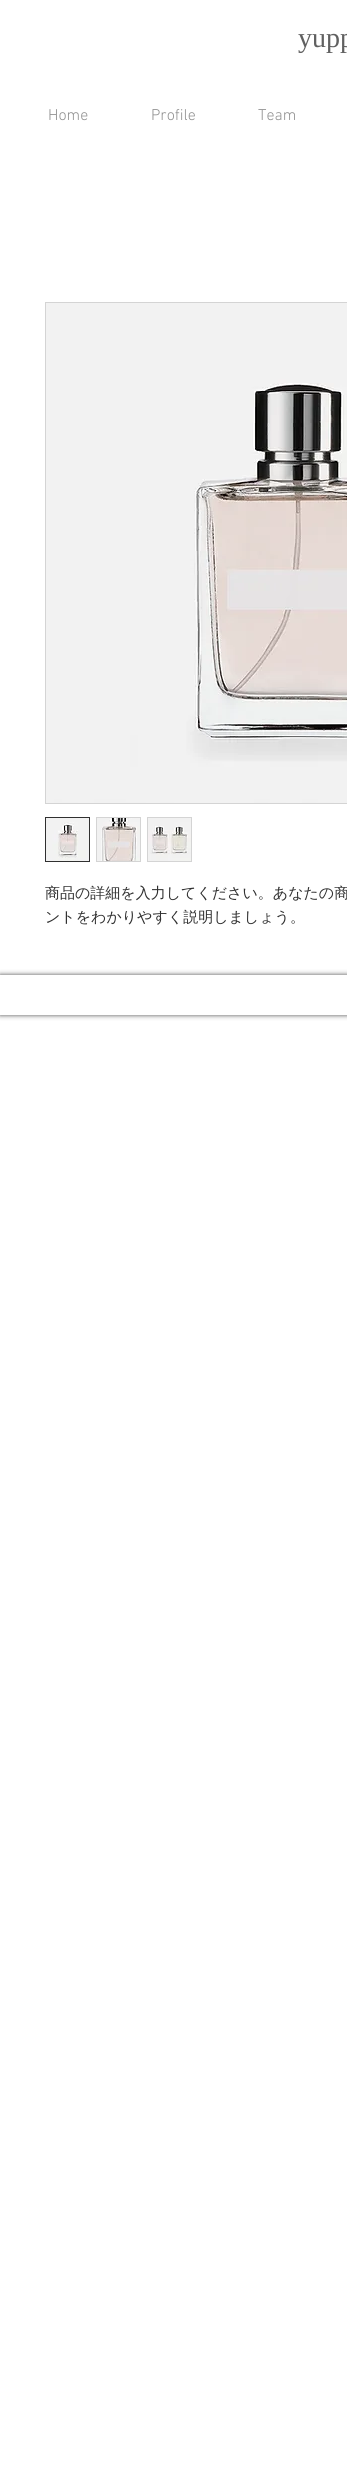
import math
import cairo



def rounded_rect(context, x, y, w, h, r):
    context.new_sub_path()
    for i, (u, v) in enumerate([(x + w - r, y + h - r), (x + r, y + h - r), (x + r, y + r), (x + w - r, y + r)]):
        context.arc(u, v, r, i * math.pi / 2, (i + 1) * math.pi / 2)
    context.close_path()


def draw_shadow(context, x, y, w, h, r, blur, alpha):
    context.push_group_with_content(cairo.Content.ALPHA)
    context.set_operator(cairo.Operator.SOURCE)
    for i in range(15, -16, -2):
        e = blur * i / 6
        if min(w, h) + 2 * e > 0:
            context.set_source_rgba(0, 0, 0, alpha * math.erfc((i - 1) / 8.5) / 2)
            rounded_rect(context, x - e, y - e, w + 2 * e, h + 2 * e, max(0, min(r + e + blur * .6, min(w, h) / 2 + e)))
            context.fill()
    context.mask(context.pop_group())


def draw_image(context, path, x, y, w, h):
    context.save()
    context.set_source_surface(cairo.ImageSurface.create_from_png(path), x, y)
    context.rectangle(x, y, w, h)
    context.fill()
    context.restore()


def draw(context):
    context.set_source_rgb(1, 1, 1)
    context.paint()
    context.rectangle(45.5, 302.5, 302, 501)
    context.set_source_rgb(212 / 255, 212 / 255, 212 / 255)
    context.set_line_width(1)
    context.stroke()
    draw_image(context, "images/1.png", 46, 303, 301, 500)
    context.rectangle(45.5, 817.5, 44, 44)
    context.set_source_rgb(48 / 255, 48 / 255, 48 / 255)
    context.stroke()
    draw_image(context, "images/2.png", 46, 818, 43, 43)
    context.set_source_rgb(212 / 255, 212 / 255, 212 / 255)
    context.rectangle(96, 817, 45, 45)
    context.fill()
    draw_image(context, "images/3.png", 97, 818, 43, 43)
    context.rectangle(147, 817, 45, 45)
    context.fill()
    draw_image(context, "images/4.png", 148, 818, 43, 43)
    context.save()
    context.set_fill_rule(cairo.FillRule.EVEN_ODD)
    context.new_path()
    context.move_to(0, 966)
    context.line_to(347, 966)
    context.line_to(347, 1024)
    context.line_to(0, 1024)
    context.close_path()
    context.move_to(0, 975)
    context.line_to(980, 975)
    context.line_to(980, 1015)
    context.line_to(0, 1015)
    context.close_path()
    context.clip()
    context.set_source_rgb(0, 0, 0)
    draw_shadow(context, 0, 975, 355, 40, 0, 2.5, 0.7)
    context.restore()
    context.select_font_face("Liberation Serif")
    context.set_font_size(28)
    context.set_source_rgb(96 / 255, 96 / 255, 96 / 255)
    context.move_to(298, 47)
    context.show_text("yupp")
    context.select_font_face("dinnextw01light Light")
    context.set_font_size(16)
    context.set_source_rgb(144 / 255, 144 / 255, 144 / 255)
    context.move_to(48, 120)
    context.show_text("Home")
    context.move_to(151, 120)
    context.show_text("Profile")
    context.move_to(258, 120)
    context.show_text("Team")
    context.select_font_face("WenQuanYi Zen Hei Medium")
    context.set_font_size(15)
    context.set_source_rgb(48 / 255, 48 / 255, 48 / 255)
    context.move_to(45, 898)
    context.show_text("商品の詳細を入力してください。あなたの商")
    context.move_to(45, 922)
    context.show_text("ントをわかりやすく説明しましょう。")


surface = cairo.ImageSurface(cairo.Format.RGB24, 347, 2482)
context = cairo.Context(surface)
options = cairo.FontOptions()
options.set_hint_metrics(cairo.HintMetrics.OFF)
options.set_hint_style(cairo.HintStyle.NONE)
context.set_font_options(options)
context.set_miter_limit(4)
draw(context)
surface.write_to_png("out.png")
